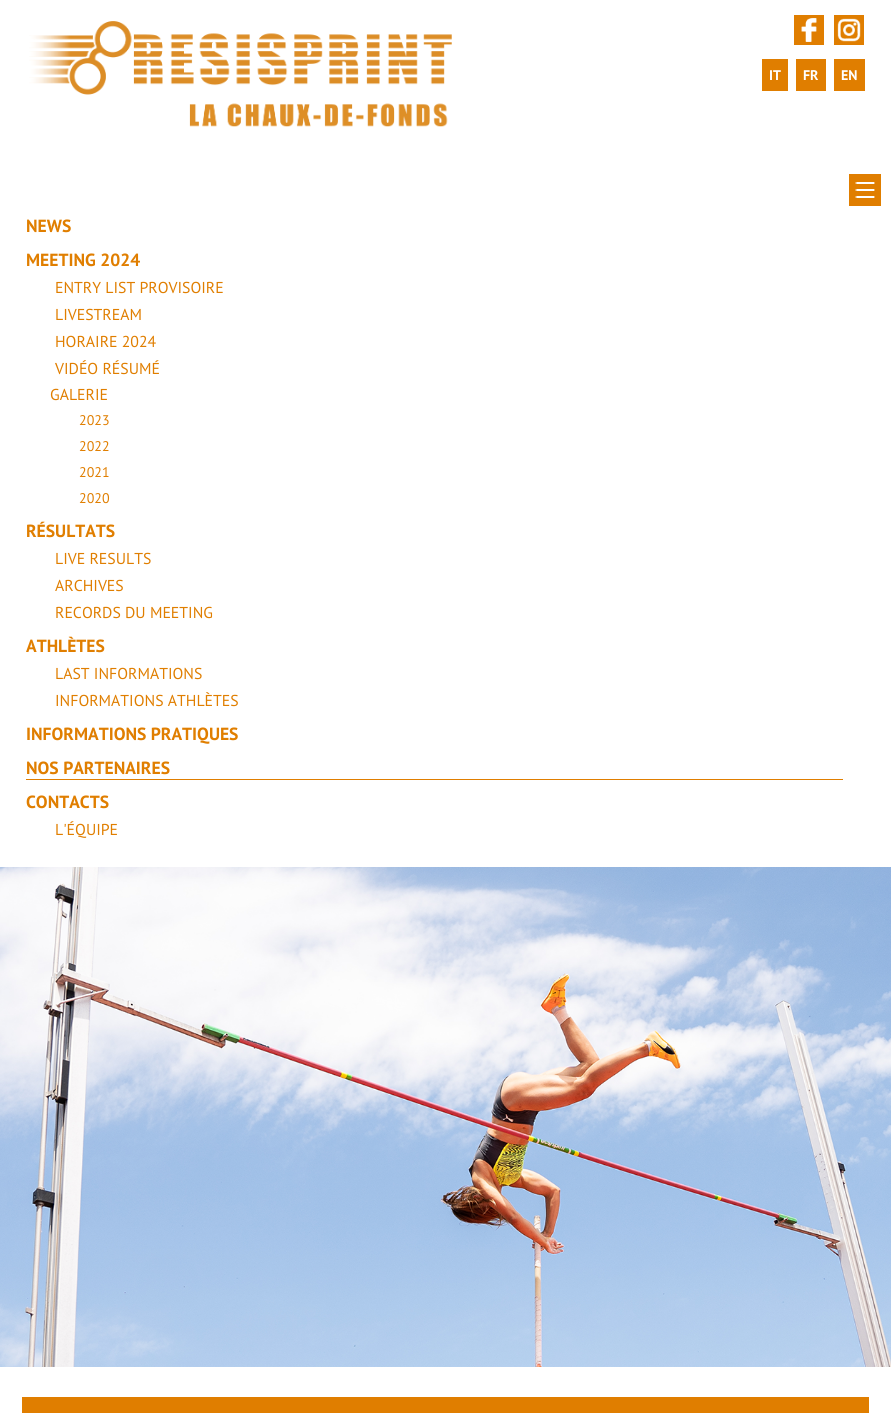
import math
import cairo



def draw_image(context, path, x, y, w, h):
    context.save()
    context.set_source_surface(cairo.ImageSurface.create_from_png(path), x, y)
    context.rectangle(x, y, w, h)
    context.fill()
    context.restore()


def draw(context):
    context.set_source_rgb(1, 1, 1)
    context.paint()
    draw_image(context, "images/1.png", 29, 21, 423, 106)
    draw_image(context, "images/2.png", 794, 15, 30, 30)
    draw_image(context, "images/3.png", 834, 15, 30, 30)
    context.set_source_rgb(224 / 255, 126 / 255, 0)
    context.rectangle(762, 59, 26, 32)
    context.fill()
    context.rectangle(796, 59, 30, 32)
    context.fill()
    context.rectangle(834, 59, 31, 32)
    context.fill()
    draw_image(context, "images/4.png", 849, 174, 32, 32)
    context.rectangle(26, 779, 817, 1)
    context.fill()
    draw_image(context, "images/5.png", 0, 867, 891, 500)
    context.rectangle(22, 1397, 847, 16)
    context.fill()
    context.select_font_face("PT Sans", cairo.FontSlant.NORMAL, cairo.FontWeight.BOLD)
    context.set_font_size(14)
    context.set_source_rgb(1, 1, 1)
    context.move_to(769, 80)
    context.show_text("IT")
    context.move_to(803, 80)
    context.show_text("FR")
    context.move_to(841, 80)
    context.show_text("EN")
    context.set_font_size(17.6)
    context.set_source_rgb(224 / 255, 126 / 255, 0)
    context.move_to(26, 232)
    context.show_text("NEWS")
    context.move_to(26, 266)
    context.show_text("MEETING 2024")
    context.select_font_face("PT Sans")
    context.set_font_size(15.8)
    context.move_to(55, 293)
    context.show_text("ENTRY LIST PROVISOIRE")
    context.move_to(55, 320)
    context.show_text("LIVESTREAM")
    context.move_to(55, 347)
    context.show_text("HORAIRE 2024")
    context.move_to(55, 374)
    context.show_text("VIDÉO RÉSUMÉ")
    context.move_to(50, 400)
    context.show_text("GALERIE")
    context.set_font_size(14)
    context.move_to(79, 425)
    context.show_text("2023")
    context.move_to(79, 451)
    context.show_text("2022")
    context.move_to(79, 477)
    context.show_text("2021")
    context.move_to(79, 503)
    context.show_text("2020")
    context.select_font_face("PT Sans", cairo.FontSlant.NORMAL, cairo.FontWeight.BOLD)
    context.set_font_size(17.6)
    context.move_to(26, 537)
    context.show_text("RÉSULTATS")
    context.select_font_face("PT Sans")
    context.set_font_size(15.8)
    context.move_to(55, 564)
    context.show_text("LIVE RESULTS")
    context.move_to(55, 591)
    context.show_text("ARCHIVES")
    context.move_to(55, 618)
    context.show_text("RECORDS DU MEETING")
    context.select_font_face("PT Sans", cairo.FontSlant.NORMAL, cairo.FontWeight.BOLD)
    context.set_font_size(17.6)
    context.move_to(26, 652)
    context.show_text("ATHLÈTES")
    context.select_font_face("PT Sans")
    context.set_font_size(15.8)
    context.move_to(55, 679)
    context.show_text("LAST INFORMATIONS")
    context.move_to(55, 706)
    context.show_text("INFORMATIONS ATHLÈTES")
    context.select_font_face("PT Sans", cairo.FontSlant.NORMAL, cairo.FontWeight.BOLD)
    context.set_font_size(17.6)
    context.move_to(26, 740)
    context.show_text("INFORMATIONS PRATIQUES")
    context.move_to(26, 774)
    context.show_text("NOS PARTENAIRES")
    context.move_to(26, 808)
    context.show_text("CONTACTS")
    context.select_font_face("PT Sans")
    context.set_font_size(15.8)
    context.move_to(55, 835)
    context.show_text("L'ÉQUIPE")


surface = cairo.ImageSurface(cairo.Format.RGB24, 891, 1413)
context = cairo.Context(surface)
options = cairo.FontOptions()
options.set_hint_metrics(cairo.HintMetrics.OFF)
options.set_hint_style(cairo.HintStyle.NONE)
context.set_font_options(options)
context.set_miter_limit(4)
draw(context)
surface.write_to_png("out.png")
